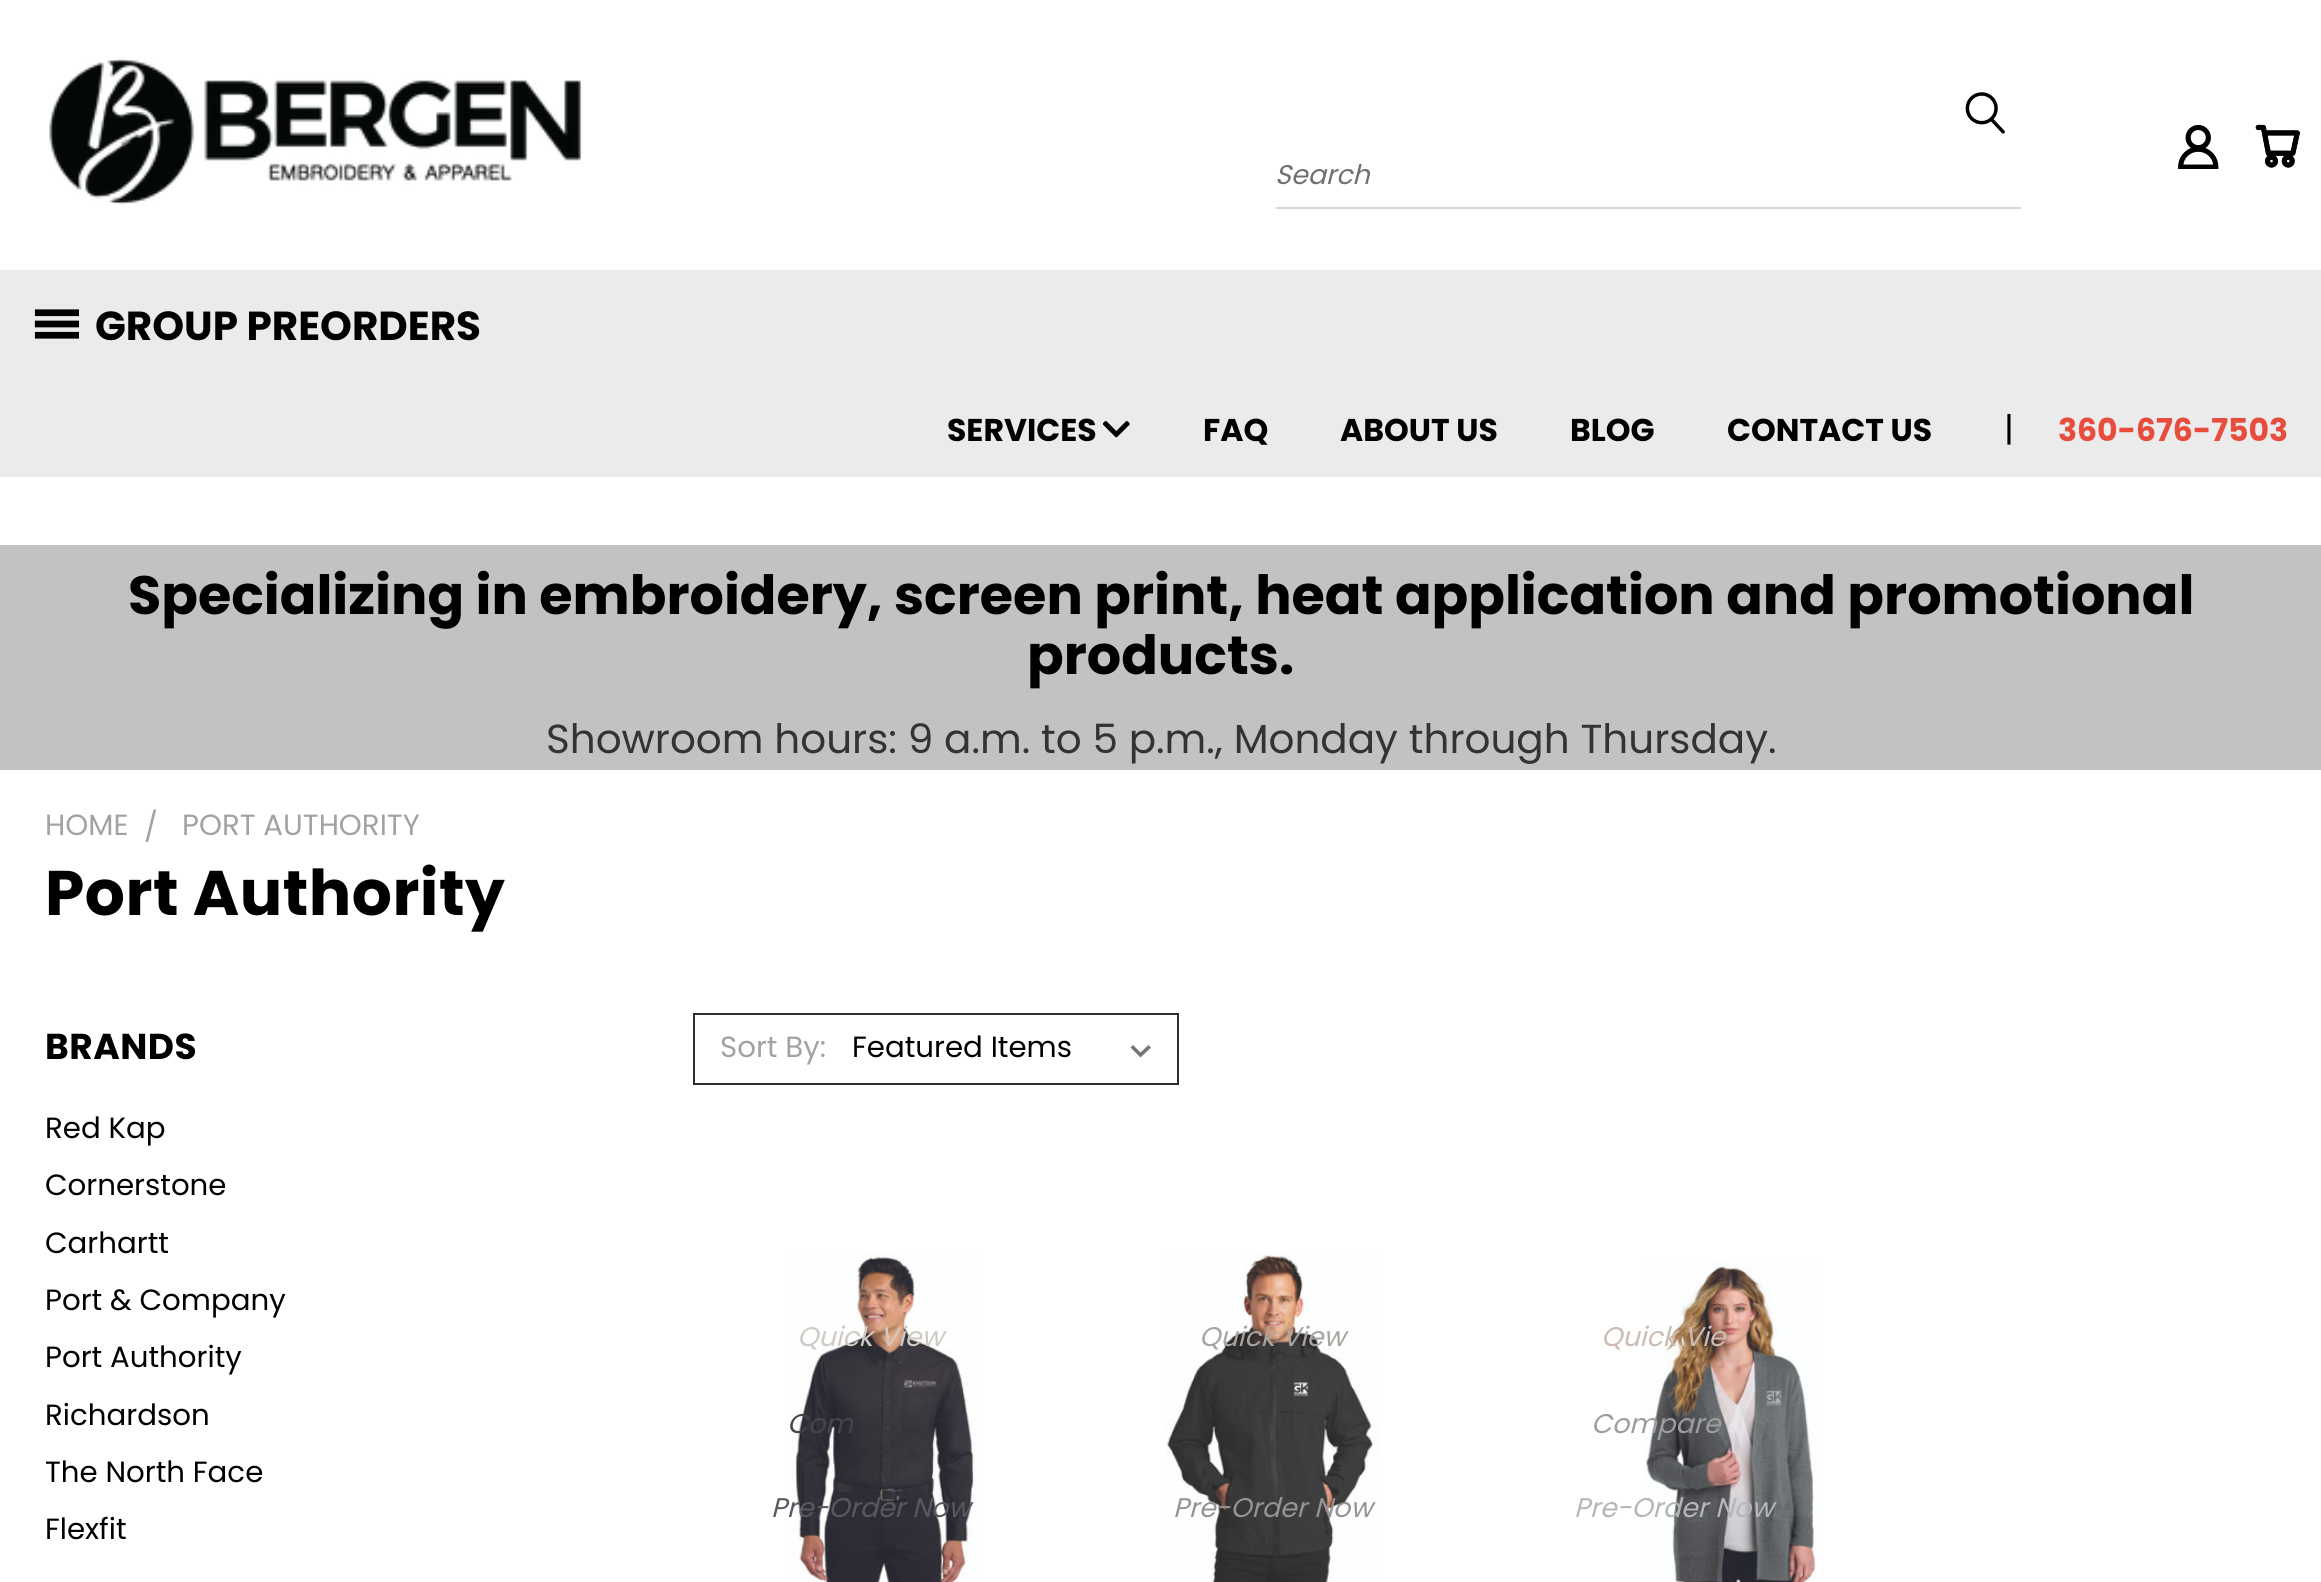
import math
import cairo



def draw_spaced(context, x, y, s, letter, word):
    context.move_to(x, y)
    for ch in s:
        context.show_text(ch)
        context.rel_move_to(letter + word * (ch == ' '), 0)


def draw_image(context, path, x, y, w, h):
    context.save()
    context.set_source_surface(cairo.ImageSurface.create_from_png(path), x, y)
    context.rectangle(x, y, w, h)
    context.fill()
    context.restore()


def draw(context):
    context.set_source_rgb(1, 1, 1)
    context.paint()
    draw_image(context, "images/1.png", 49, 58, 533, 147)
    draw_image(context, "images/2.png", 2178, 124, 41, 45)
    draw_image(context, "images/3.png", 2255, 124, 45, 44)
    draw_image(context, "images/4.png", 1965, 92, 40, 42)
    context.set_source_rgb(215 / 255, 215 / 255, 215 / 255)
    context.rectangle(1276, 207, 745, 2)
    context.fill()
    context.set_source_rgb(235 / 255, 235 / 255, 235 / 255)
    context.rectangle(0, 270, 2321, 207)
    context.fill()
    draw_image(context, "images/5.png", 34, 309, 45, 30)
    draw_image(context, "images/6.png", 1102, 421, 28, 17)
    context.set_source_rgb(194 / 255, 194 / 255, 194 / 255)
    context.rectangle(0, 545, 2321, 225)
    context.fill()
    context.rectangle(694, 1014, 484, 70)
    context.set_source_rgb(47 / 255, 47 / 255, 43 / 255)
    context.stroke()
    context.set_source_rgb(117 / 255, 117 / 255, 117 / 255)
    context.new_path()
    context.move_to(1148.5, 1045)
    context.line_to(1140.5, 1052.5)
    context.line_to(1133, 1045)
    context.line_to(1130.5, 1047.5)
    context.line_to(1140.5, 1057.5)
    context.line_to(1151, 1047.5)
    context.close_path()
    context.fill()
    draw_image(context, "images/7.png", 791, 1251, 186, 331)
    draw_image(context, "images/8.png", 1166, 1251, 213, 331)
    draw_image(context, "images/9.png", 1643, 1260, 174, 322)
    context.select_font_face("Poppins", cairo.FontSlant.ITALIC)
    context.set_font_size(27)
    context.set_source_rgb(112 / 255, 112 / 255, 110 / 255)
    context.move_to(1275, 184)
    context.show_text("Search")
    context.select_font_face("Poppins", cairo.FontSlant.NORMAL, cairo.FontWeight.BOLD)
    context.set_font_size(40.5)
    context.set_source_rgb(0, 0, 0)
    context.move_to(95, 340)
    context.show_text("GROUP PREORDERS")
    context.set_font_size(31.5)
    context.move_to(947, 441)
    context.show_text("SERVICES")
    context.move_to(1203, 441)
    context.show_text("FAQ")
    context.move_to(1340, 441)
    context.show_text("ABOUT US")
    context.move_to(1570, 441)
    context.show_text("BLOG")
    context.move_to(1727, 441)
    context.show_text("CONTACT US")
    context.select_font_face("Poppins")
    context.set_font_size(34)
    context.move_to(2004, 441)
    context.show_text("|")
    context.select_font_face("Poppins", cairo.FontSlant.NORMAL, cairo.FontWeight.BOLD)
    context.set_font_size(31.5)
    context.set_source_rgb(231 / 255, 76 / 255, 60 / 255)
    context.move_to(2058, 441)
    context.show_text("360-676-7503")
    context.set_font_size(54)
    context.set_source_rgb(0, 0, 0)
    context.move_to(128, 614)
    context.show_text("Specializing in embroidery, screen print, heat application and promotional")
    context.move_to(1027, 674)
    context.show_text("products.")
    context.select_font_face("Poppins")
    context.set_font_size(40.5)
    context.set_source_rgb(51 / 255, 51 / 255, 51 / 255)
    context.move_to(546, 753)
    context.show_text("Showroom hours: 9 a.m. to 5 p.m., Monday through Thursday.")
    context.set_font_size(29.25)
    context.set_source_rgb(162 / 255, 162 / 255, 162 / 255)
    context.move_to(45, 835)
    context.show_text("HOME")
    context.move_to(144, 837)
    context.show_text("/")
    context.move_to(182, 835)
    context.show_text("PORT AUTHORITY")
    context.select_font_face("Poppins", cairo.FontSlant.NORMAL, cairo.FontWeight.BOLD)
    context.set_font_size(63)
    context.set_source_rgb(0, 0, 0)
    draw_spaced(context, 45, 915, "Port Authority", 0.5, 0)
    context.set_font_size(36)
    draw_spaced(context, 45, 1059, "BRANDS", 0.5, 0)
    context.select_font_face("Poppins")
    context.set_font_size(29.25)
    context.move_to(45, 1138)
    context.show_text("Red Kap")
    context.move_to(45, 1195)
    context.show_text("Cornerstone")
    context.move_to(45, 1253)
    context.show_text("Carhartt")
    context.move_to(45, 1310)
    context.show_text("Port & Company")
    context.move_to(45, 1367)
    context.show_text("Port Authority")
    context.move_to(45, 1425)
    context.show_text("Richardson")
    context.move_to(45, 1482)
    context.show_text("The North Face")
    context.move_to(45, 1539)
    context.show_text("Flexfit")
    context.set_source_rgb(162 / 255, 162 / 255, 162 / 255)
    context.move_to(720, 1057)
    context.show_text("Sort By:")
    context.set_source_rgb(0, 0, 0)
    context.move_to(852, 1057)
    context.show_text("Featured Items")
    context.select_font_face("Poppins", cairo.FontSlant.ITALIC)
    context.set_font_size(27)
    context.set_source_rgb(208 / 255, 201 / 255, 196 / 255)
    context.move_to(797, 1346)
    context.show_text("Quick View")
    context.set_source_rgb(69 / 255, 68 / 255, 75 / 255)
    context.move_to(787, 1433)
    context.show_text("Com")
    context.set_source_rgb(89 / 255, 88 / 255, 95 / 255)
    context.move_to(771, 1517)
    context.show_text("Pre-Order Now")
    context.set_source_rgb(170 / 255, 164 / 255, 160 / 255)
    context.move_to(1199, 1346)
    context.show_text("Quick View")
    context.set_source_rgb(147 / 255, 148 / 255, 147 / 255)
    context.move_to(1173, 1517)
    context.show_text("Pre-Order Now")
    context.set_source_rgb(204 / 255, 187 / 255, 178 / 255)
    context.move_to(1601, 1346)
    context.show_text("Quick Vie")
    context.set_source_rgb(156 / 255, 157 / 255, 159 / 255)
    context.move_to(1591, 1433)
    context.show_text("Compare")
    context.set_source_rgb(181 / 255, 182 / 255, 184 / 255)
    context.move_to(1574, 1517)
    context.show_text("Pre-Order Now")


surface = cairo.ImageSurface(cairo.Format.RGB24, 2321, 1582)
context = cairo.Context(surface)
options = cairo.FontOptions()
options.set_hint_metrics(cairo.HintMetrics.OFF)
options.set_hint_style(cairo.HintStyle.NONE)
context.set_font_options(options)
context.set_miter_limit(4)
draw(context)
surface.write_to_png("out.png")
